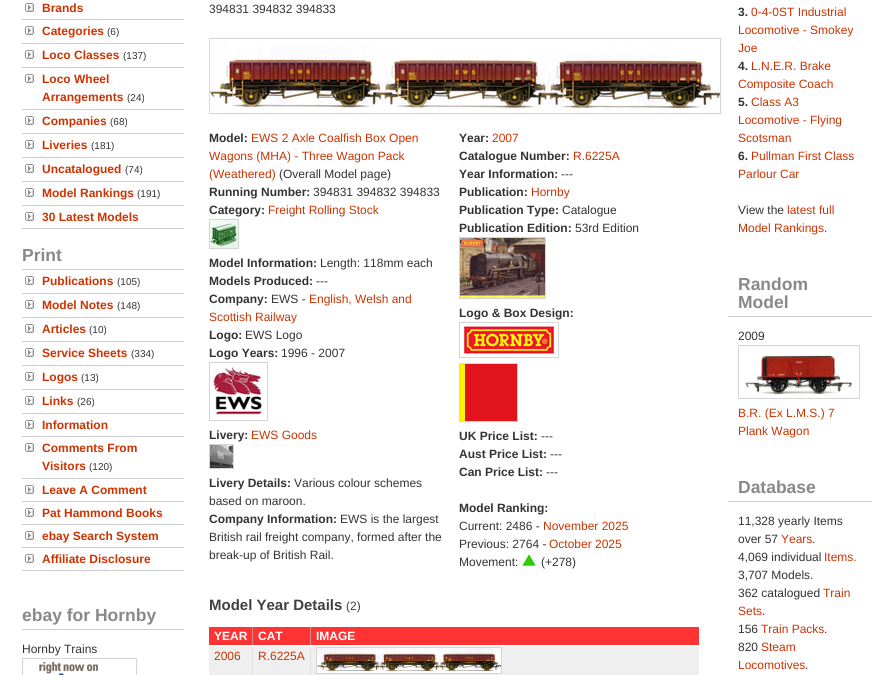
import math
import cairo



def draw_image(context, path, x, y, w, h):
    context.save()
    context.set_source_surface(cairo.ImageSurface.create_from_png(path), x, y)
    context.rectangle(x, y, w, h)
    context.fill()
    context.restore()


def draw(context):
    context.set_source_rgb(1, 1, 1)
    context.paint()
    draw_image(context, "images/1.png", 25, 3, 9, 9)
    context.set_source_rgb(206 / 255, 206 / 255, 206 / 255)
    context.rectangle(22, 19, 162, 1)
    context.fill()
    draw_image(context, "images/1.png", 25, 26, 9, 9)
    context.rectangle(22, 43, 162, 1)
    context.fill()
    draw_image(context, "images/1.png", 25, 50, 9, 9)
    context.rectangle(22, 67, 162, 1)
    context.fill()
    draw_image(context, "images/1.png", 25, 74, 9, 9)
    context.rectangle(22, 109, 162, 1)
    context.fill()
    draw_image(context, "images/1.png", 25, 116, 9, 9)
    context.rectangle(22, 133, 162, 1)
    context.fill()
    draw_image(context, "images/1.png", 25, 140, 9, 9)
    context.rectangle(22, 157, 162, 1)
    context.fill()
    draw_image(context, "images/1.png", 25, 164, 9, 9)
    context.rectangle(22, 181, 162, 1)
    context.fill()
    draw_image(context, "images/1.png", 25, 188, 9, 9)
    context.rectangle(22, 205, 162, 1)
    context.fill()
    draw_image(context, "images/1.png", 25, 212, 9, 9)
    context.rectangle(22, 228, 162, 1)
    context.fill()
    context.rectangle(22, 269, 162, 1)
    context.fill()
    draw_image(context, "images/1.png", 25, 276, 9, 9)
    context.rectangle(22, 293, 162, 1)
    context.fill()
    draw_image(context, "images/1.png", 25, 300, 9, 9)
    context.rectangle(22, 317, 162, 1)
    context.fill()
    draw_image(context, "images/1.png", 25, 324, 9, 9)
    context.rectangle(22, 341, 162, 1)
    context.fill()
    draw_image(context, "images/1.png", 25, 348, 9, 9)
    context.rectangle(22, 365, 162, 1)
    context.fill()
    draw_image(context, "images/1.png", 25, 372, 9, 9)
    context.rectangle(22, 389, 162, 1)
    context.fill()
    draw_image(context, "images/1.png", 25, 396, 9, 9)
    context.rectangle(22, 413, 162, 1)
    context.fill()
    draw_image(context, "images/1.png", 25, 420, 9, 9)
    context.rectangle(22, 436, 162, 1)
    context.fill()
    draw_image(context, "images/1.png", 25, 443, 9, 9)
    context.rectangle(22, 478, 162, 1)
    context.fill()
    draw_image(context, "images/1.png", 25, 485, 9, 9)
    context.rectangle(22, 501, 162, 1)
    context.fill()
    draw_image(context, "images/1.png", 25, 508, 9, 9)
    context.rectangle(22, 524, 162, 1)
    context.fill()
    draw_image(context, "images/1.png", 25, 531, 9, 9)
    context.rectangle(22, 547, 162, 1)
    context.fill()
    draw_image(context, "images/1.png", 25, 554, 9, 9)
    context.rectangle(22, 570, 162, 1)
    context.fill()
    context.rectangle(22, 629, 162, 1)
    context.fill()
    context.rectangle(22.5, 658.5, 114, 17)
    context.set_source_rgb(213 / 255, 213 / 255, 213 / 255)
    context.set_line_width(1)
    context.stroke()
    draw_image(context, "images/2.png", 39, 661, 59, 14)
    context.rectangle(209.5, 38.5, 511, 75)
    context.stroke()
    draw_image(context, "images/3.png", 210, 41, 510, 70)
    context.rectangle(209.5, 219.5, 29, 29)
    context.stroke()
    draw_image(context, "images/4.png", 210, 220, 28, 28)
    context.rectangle(209.5, 362.5, 58, 58)
    context.stroke()
    draw_image(context, "images/5.png", 212, 367, 51, 48)
    context.rectangle(209.5, 444.5, 24, 24)
    context.stroke()
    draw_image(context, "images/6.png", 210, 445, 23, 23)
    context.rectangle(459.5, 237.5, 86, 61)
    context.stroke()
    draw_image(context, "images/7.png", 460, 238, 85, 60)
    context.rectangle(459.5, 322.5, 99, 35)
    context.stroke()
    draw_image(context, "images/8.png", 464, 326, 90, 28)
    context.rectangle(459.5, 363.5, 58, 58)
    context.stroke()
    draw_image(context, "images/9.png", 460, 364, 57, 57)
    draw_image(context, "images/10.png", 522, 554, 14, 12)
    context.set_source_rgb(1, 51 / 255, 51 / 255)
    context.rectangle(209, 627, 43, 18)
    context.fill()
    context.rectangle(253, 627, 57, 18)
    context.fill()
    context.set_source_rgb(239 / 255, 239 / 255, 239 / 255)
    context.rectangle(209, 647, 490, 28)
    context.fill()
    context.set_source_rgb(223 / 255, 223 / 255, 223 / 255)
    context.rectangle(252, 646, 1, 29)
    context.fill()
    context.set_source_rgb(214 / 255, 134 / 255, 134 / 255)
    context.rectangle(252, 627, 1, 20)
    context.fill()
    context.set_source_rgb(1, 1, 1)
    context.rectangle(251, 645, 2, 2)
    context.fill()
    context.set_source_rgb(1, 51 / 255, 51 / 255)
    context.rectangle(311, 627, 388, 18)
    context.fill()
    context.set_source_rgb(223 / 255, 223 / 255, 223 / 255)
    context.rectangle(310, 646, 1, 29)
    context.fill()
    context.set_source_rgb(214 / 255, 134 / 255, 134 / 255)
    context.rectangle(310, 627, 1, 20)
    context.fill()
    context.set_source_rgb(1, 1, 1)
    context.rectangle(309, 645, 2, 2)
    context.fill()
    context.rectangle(316.5, 647.5, 185, 26)
    context.set_source_rgb(213 / 255, 213 / 255, 213 / 255)
    context.stroke()
    draw_image(context, "images/11.png", 317, 648, 184, 25)
    context.set_source_rgb(206 / 255, 206 / 255, 206 / 255)
    context.rectangle(728, 316, 144, 1)
    context.fill()
    context.rectangle(738.5, 345.5, 121, 53)
    context.set_source_rgb(213 / 255, 213 / 255, 213 / 255)
    context.stroke()
    draw_image(context, "images/12.png", 742, 354, 110, 41)
    context.set_source_rgb(206 / 255, 206 / 255, 206 / 255)
    context.rectangle(728, 501, 144, 1)
    context.fill()
    context.select_font_face("Liberation Sans", cairo.FontSlant.NORMAL, cairo.FontWeight.BOLD)
    context.set_font_size(12)
    context.set_source_rgb(204 / 255, 51 / 255, 0)
    context.move_to(42, 12)
    context.show_text("Brands")
    context.move_to(42, 35)
    context.show_text("Categories")
    context.select_font_face("Liberation Sans")
    context.set_font_size(10)
    context.set_source_rgb(51 / 255, 51 / 255, 51 / 255)
    context.move_to(107, 35)
    context.show_text("(6)")
    context.select_font_face("Liberation Sans", cairo.FontSlant.NORMAL, cairo.FontWeight.BOLD)
    context.set_font_size(12)
    context.set_source_rgb(204 / 255, 51 / 255, 0)
    context.move_to(42, 59)
    context.show_text("Loco Classes")
    context.select_font_face("Liberation Sans")
    context.set_font_size(10)
    context.set_source_rgb(51 / 255, 51 / 255, 51 / 255)
    context.move_to(123, 59)
    context.show_text("(137)")
    context.select_font_face("Liberation Sans", cairo.FontSlant.NORMAL, cairo.FontWeight.BOLD)
    context.set_font_size(12)
    context.set_source_rgb(204 / 255, 51 / 255, 0)
    context.move_to(42, 83)
    context.show_text("Loco Wheel")
    context.move_to(42, 101)
    context.show_text("Arrangements")
    context.select_font_face("Liberation Sans")
    context.set_font_size(10)
    context.set_source_rgb(51 / 255, 51 / 255, 51 / 255)
    context.move_to(127, 101)
    context.show_text("(24)")
    context.select_font_face("Liberation Sans", cairo.FontSlant.NORMAL, cairo.FontWeight.BOLD)
    context.set_font_size(12)
    context.set_source_rgb(204 / 255, 51 / 255, 0)
    context.move_to(42, 125)
    context.show_text("Companies")
    context.select_font_face("Liberation Sans")
    context.set_font_size(10)
    context.set_source_rgb(51 / 255, 51 / 255, 51 / 255)
    context.move_to(110, 125)
    context.show_text("(68)")
    context.select_font_face("Liberation Sans", cairo.FontSlant.NORMAL, cairo.FontWeight.BOLD)
    context.set_font_size(12)
    context.set_source_rgb(204 / 255, 51 / 255, 0)
    context.move_to(42, 149)
    context.show_text("Liveries")
    context.select_font_face("Liberation Sans")
    context.set_font_size(10)
    context.set_source_rgb(51 / 255, 51 / 255, 51 / 255)
    context.move_to(91, 149)
    context.show_text("(181)")
    context.select_font_face("Liberation Sans", cairo.FontSlant.NORMAL, cairo.FontWeight.BOLD)
    context.set_font_size(12)
    context.set_source_rgb(204 / 255, 51 / 255, 0)
    context.move_to(42, 173)
    context.show_text("Uncatalogued")
    context.select_font_face("Liberation Sans")
    context.set_font_size(10)
    context.set_source_rgb(51 / 255, 51 / 255, 51 / 255)
    context.move_to(125, 173)
    context.show_text("(74)")
    context.select_font_face("Liberation Sans", cairo.FontSlant.NORMAL, cairo.FontWeight.BOLD)
    context.set_font_size(12)
    context.set_source_rgb(204 / 255, 51 / 255, 0)
    context.move_to(42, 197)
    context.show_text("Model Rankings")
    context.select_font_face("Liberation Sans")
    context.set_font_size(10)
    context.set_source_rgb(51 / 255, 51 / 255, 51 / 255)
    context.move_to(137, 197)
    context.show_text("(191)")
    context.select_font_face("Liberation Sans", cairo.FontSlant.NORMAL, cairo.FontWeight.BOLD)
    context.set_font_size(12)
    context.set_source_rgb(204 / 255, 51 / 255, 0)
    context.move_to(42, 221)
    context.show_text("30 Latest Models")
    context.set_font_size(17.5)
    context.set_source_rgb(137 / 255, 137 / 255, 137 / 255)
    context.move_to(22, 261)
    context.show_text("Print")
    context.set_font_size(12)
    context.set_source_rgb(204 / 255, 51 / 255, 0)
    context.move_to(42, 285)
    context.show_text("Publications")
    context.select_font_face("Liberation Sans")
    context.set_font_size(10)
    context.set_source_rgb(51 / 255, 51 / 255, 51 / 255)
    context.move_to(117, 285)
    context.show_text("(105)")
    context.select_font_face("Liberation Sans", cairo.FontSlant.NORMAL, cairo.FontWeight.BOLD)
    context.set_font_size(12)
    context.set_source_rgb(204 / 255, 51 / 255, 0)
    context.move_to(42, 309)
    context.show_text("Model Notes")
    context.select_font_face("Liberation Sans")
    context.set_font_size(10)
    context.set_source_rgb(51 / 255, 51 / 255, 51 / 255)
    context.move_to(117, 309)
    context.show_text("(148)")
    context.select_font_face("Liberation Sans", cairo.FontSlant.NORMAL, cairo.FontWeight.BOLD)
    context.set_font_size(12)
    context.set_source_rgb(204 / 255, 51 / 255, 0)
    context.move_to(42, 333)
    context.show_text("Articles")
    context.select_font_face("Liberation Sans")
    context.set_font_size(10)
    context.set_source_rgb(51 / 255, 51 / 255, 51 / 255)
    context.move_to(89, 333)
    context.show_text("(10)")
    context.select_font_face("Liberation Sans", cairo.FontSlant.NORMAL, cairo.FontWeight.BOLD)
    context.set_font_size(12)
    context.set_source_rgb(204 / 255, 51 / 255, 0)
    context.move_to(42, 357)
    context.show_text("Service Sheets")
    context.select_font_face("Liberation Sans")
    context.set_font_size(10)
    context.set_source_rgb(51 / 255, 51 / 255, 51 / 255)
    context.move_to(131, 357)
    context.show_text("(334)")
    context.select_font_face("Liberation Sans", cairo.FontSlant.NORMAL, cairo.FontWeight.BOLD)
    context.set_font_size(12)
    context.set_source_rgb(204 / 255, 51 / 255, 0)
    context.move_to(42, 381)
    context.show_text("Logos")
    context.select_font_face("Liberation Sans")
    context.set_font_size(10)
    context.set_source_rgb(51 / 255, 51 / 255, 51 / 255)
    context.move_to(81, 381)
    context.show_text("(13)")
    context.select_font_face("Liberation Sans", cairo.FontSlant.NORMAL, cairo.FontWeight.BOLD)
    context.set_font_size(12)
    context.set_source_rgb(204 / 255, 51 / 255, 0)
    context.move_to(42, 405)
    context.show_text("Links")
    context.select_font_face("Liberation Sans")
    context.set_font_size(10)
    context.set_source_rgb(51 / 255, 51 / 255, 51 / 255)
    context.move_to(77, 405)
    context.show_text("(26)")
    context.select_font_face("Liberation Sans", cairo.FontSlant.NORMAL, cairo.FontWeight.BOLD)
    context.set_font_size(12)
    context.set_source_rgb(204 / 255, 51 / 255, 0)
    context.move_to(42, 429)
    context.show_text("Information")
    context.move_to(42, 452)
    context.show_text("Comments From")
    context.move_to(42, 470)
    context.show_text("Visitors")
    context.select_font_face("Liberation Sans")
    context.set_font_size(10)
    context.set_source_rgb(51 / 255, 51 / 255, 51 / 255)
    context.move_to(89, 470)
    context.show_text("(120)")
    context.select_font_face("Liberation Sans", cairo.FontSlant.NORMAL, cairo.FontWeight.BOLD)
    context.set_font_size(12)
    context.set_source_rgb(204 / 255, 51 / 255, 0)
    context.move_to(42, 494)
    context.show_text("Leave A Comment")
    context.move_to(42, 517)
    context.show_text("Pat Hammond Books")
    context.move_to(42, 540)
    context.show_text("ebay Search System")
    context.move_to(42, 563)
    context.show_text("Affiliate Disclosure")
    context.set_font_size(17.5)
    context.set_source_rgb(137 / 255, 137 / 255, 137 / 255)
    context.move_to(22, 621)
    context.show_text("ebay for Hornby")
    context.select_font_face("Liberation Sans")
    context.set_font_size(12)
    context.set_source_rgb(51 / 255, 51 / 255, 51 / 255)
    context.move_to(22, 653)
    context.show_text("Hornby Trains")
    context.move_to(209, 13)
    context.show_text("394831 394832 394833")
    context.select_font_face("Liberation Sans", cairo.FontSlant.NORMAL, cairo.FontWeight.BOLD)
    context.move_to(209, 142)
    context.show_text("Model:")
    context.select_font_face("Liberation Sans")
    context.set_source_rgb(204 / 255, 51 / 255, 0)
    context.move_to(251, 142)
    context.show_text("EWS 2 Axle Coalfish Box Open")
    context.move_to(209, 160)
    context.show_text("Wagons (MHA) - Three Wagon Pack")
    context.move_to(209, 178)
    context.show_text("(Weathered)")
    context.set_source_rgb(51 / 255, 51 / 255, 51 / 255)
    context.move_to(279, 178)
    context.show_text("(Overall Model page)")
    context.select_font_face("Liberation Sans", cairo.FontSlant.NORMAL, cairo.FontWeight.BOLD)
    context.move_to(209, 196)
    context.show_text("Running Number:")
    context.select_font_face("Liberation Sans")
    context.move_to(313, 196)
    context.show_text("394831 394832 394833")
    context.select_font_face("Liberation Sans", cairo.FontSlant.NORMAL, cairo.FontWeight.BOLD)
    context.move_to(209, 214)
    context.show_text("Category:")
    context.select_font_face("Liberation Sans")
    context.set_source_rgb(204 / 255, 51 / 255, 0)
    context.move_to(268, 214)
    context.show_text("Freight Rolling Stock")
    context.select_font_face("Liberation Sans", cairo.FontSlant.NORMAL, cairo.FontWeight.BOLD)
    context.set_source_rgb(51 / 255, 51 / 255, 51 / 255)
    context.move_to(209, 267)
    context.show_text("Model Information:")
    context.select_font_face("Liberation Sans")
    context.move_to(320, 267)
    context.show_text("Length: 118mm each")
    context.select_font_face("Liberation Sans", cairo.FontSlant.NORMAL, cairo.FontWeight.BOLD)
    context.move_to(209, 285)
    context.show_text("Models Produced:")
    context.select_font_face("Liberation Sans")
    context.move_to(316, 285)
    context.show_text("---")
    context.select_font_face("Liberation Sans", cairo.FontSlant.NORMAL, cairo.FontWeight.BOLD)
    context.move_to(209, 303)
    context.show_text("Company:")
    context.select_font_face("Liberation Sans")
    context.move_to(271, 303)
    context.show_text("EWS -")
    context.set_source_rgb(204 / 255, 51 / 255, 0)
    context.move_to(309, 303)
    context.show_text("English, Welsh and")
    context.move_to(209, 321)
    context.show_text("Scottish Railway")
    context.select_font_face("Liberation Sans", cairo.FontSlant.NORMAL, cairo.FontWeight.BOLD)
    context.set_source_rgb(51 / 255, 51 / 255, 51 / 255)
    context.move_to(209, 339)
    context.show_text("Logo:")
    context.select_font_face("Liberation Sans")
    context.move_to(245, 339)
    context.show_text("EWS Logo")
    context.select_font_face("Liberation Sans", cairo.FontSlant.NORMAL, cairo.FontWeight.BOLD)
    context.move_to(209, 357)
    context.show_text("Logo Years:")
    context.select_font_face("Liberation Sans")
    context.move_to(281, 357)
    context.show_text("1996 - 2007")
    context.select_font_face("Liberation Sans", cairo.FontSlant.NORMAL, cairo.FontWeight.BOLD)
    context.move_to(209, 439)
    context.show_text("Livery:")
    context.select_font_face("Liberation Sans")
    context.set_source_rgb(204 / 255, 51 / 255, 0)
    context.move_to(251, 439)
    context.show_text("EWS Goods")
    context.select_font_face("Liberation Sans", cairo.FontSlant.NORMAL, cairo.FontWeight.BOLD)
    context.set_source_rgb(51 / 255, 51 / 255, 51 / 255)
    context.move_to(209, 487)
    context.show_text("Livery Details:")
    context.select_font_face("Liberation Sans")
    context.move_to(294, 487)
    context.show_text("Various colour schemes")
    context.move_to(209, 505)
    context.show_text("based on maroon.")
    context.select_font_face("Liberation Sans", cairo.FontSlant.NORMAL, cairo.FontWeight.BOLD)
    context.move_to(209, 523)
    context.show_text("Company Information:")
    context.select_font_face("Liberation Sans")
    context.move_to(340, 523)
    context.show_text("EWS is the largest")
    context.move_to(209, 541)
    context.show_text("British rail freight company, formed after the")
    context.move_to(209, 559)
    context.show_text("break-up of British Rail.")
    context.select_font_face("Liberation Sans", cairo.FontSlant.NORMAL, cairo.FontWeight.BOLD)
    context.move_to(459, 142)
    context.show_text("Year:")
    context.select_font_face("Liberation Sans")
    context.set_source_rgb(204 / 255, 51 / 255, 0)
    context.move_to(492, 142)
    context.show_text("2007")
    context.select_font_face("Liberation Sans", cairo.FontSlant.NORMAL, cairo.FontWeight.BOLD)
    context.set_source_rgb(51 / 255, 51 / 255, 51 / 255)
    context.move_to(459, 160)
    context.show_text("Catalogue Number:")
    context.select_font_face("Liberation Sans")
    context.set_source_rgb(204 / 255, 51 / 255, 0)
    context.move_to(573, 160)
    context.show_text("R.6225A")
    context.select_font_face("Liberation Sans", cairo.FontSlant.NORMAL, cairo.FontWeight.BOLD)
    context.set_source_rgb(51 / 255, 51 / 255, 51 / 255)
    context.move_to(459, 178)
    context.show_text("Year Information:")
    context.select_font_face("Liberation Sans")
    context.move_to(561, 178)
    context.show_text("---")
    context.select_font_face("Liberation Sans", cairo.FontSlant.NORMAL, cairo.FontWeight.BOLD)
    context.move_to(459, 196)
    context.show_text("Publication:")
    context.select_font_face("Liberation Sans")
    context.set_source_rgb(204 / 255, 51 / 255, 0)
    context.move_to(531, 196)
    context.show_text("Hornby")
    context.select_font_face("Liberation Sans", cairo.FontSlant.NORMAL, cairo.FontWeight.BOLD)
    context.set_source_rgb(51 / 255, 51 / 255, 51 / 255)
    context.move_to(459, 214)
    context.show_text("Publication Type:")
    context.select_font_face("Liberation Sans")
    context.move_to(562, 214)
    context.show_text("Catalogue")
    context.select_font_face("Liberation Sans", cairo.FontSlant.NORMAL, cairo.FontWeight.BOLD)
    context.move_to(459, 232)
    context.show_text("Publication Edition:")
    context.select_font_face("Liberation Sans")
    context.move_to(575, 232)
    context.show_text("53rd Edition")
    context.select_font_face("Liberation Sans", cairo.FontSlant.NORMAL, cairo.FontWeight.BOLD)
    context.move_to(459, 317)
    context.show_text("Logo & Box Design:")
    context.move_to(459, 440)
    context.show_text("UK Price List:")
    context.select_font_face("Liberation Sans")
    context.move_to(541, 440)
    context.show_text("---")
    context.select_font_face("Liberation Sans", cairo.FontSlant.NORMAL, cairo.FontWeight.BOLD)
    context.move_to(459, 458)
    context.show_text("Aust Price List:")
    context.select_font_face("Liberation Sans")
    context.move_to(550, 458)
    context.show_text("---")
    context.select_font_face("Liberation Sans", cairo.FontSlant.NORMAL, cairo.FontWeight.BOLD)
    context.move_to(459, 476)
    context.show_text("Can Price List:")
    context.select_font_face("Liberation Sans")
    context.move_to(546, 476)
    context.show_text("---")
    context.select_font_face("Liberation Sans", cairo.FontSlant.NORMAL, cairo.FontWeight.BOLD)
    context.move_to(459, 512)
    context.show_text("Model Ranking:")
    context.select_font_face("Liberation Sans")
    context.move_to(459, 530)
    context.show_text("Current: 2486 -")
    context.set_source_rgb(204 / 255, 51 / 255, 0)
    context.move_to(543, 530)
    context.show_text("November 2025")
    context.set_source_rgb(51 / 255, 51 / 255, 51 / 255)
    context.move_to(459, 548)
    context.show_text("Previous: 2764 -")
    context.set_source_rgb(204 / 255, 51 / 255, 0)
    context.move_to(549, 548)
    context.show_text("October 2025")
    context.set_source_rgb(51 / 255, 51 / 255, 51 / 255)
    context.move_to(459, 566)
    context.show_text("Movement:")
    context.move_to(541, 566)
    context.show_text("(+278)")
    context.select_font_face("Liberation Sans", cairo.FontSlant.NORMAL, cairo.FontWeight.BOLD)
    context.set_font_size(15)
    context.set_source_rgb(64 / 255, 64 / 255, 64 / 255)
    context.move_to(209, 610)
    context.show_text("Model Year Details")
    context.select_font_face("Liberation Sans")
    context.set_font_size(12)
    context.move_to(346, 610)
    context.show_text("(2)")
    context.select_font_face("Liberation Sans", cairo.FontSlant.NORMAL, cairo.FontWeight.BOLD)
    context.set_source_rgb(1, 1, 1)
    context.move_to(214, 640)
    context.show_text("YEAR")
    context.move_to(258, 640)
    context.show_text("CAT")
    context.move_to(316, 640)
    context.show_text("IMAGE")
    context.select_font_face("Liberation Sans")
    context.set_source_rgb(204 / 255, 51 / 255, 0)
    context.move_to(214, 660)
    context.show_text("2006")
    context.move_to(258, 660)
    context.show_text("R.6225A")
    context.select_font_face("Liberation Sans", cairo.FontSlant.NORMAL, cairo.FontWeight.BOLD)
    context.set_source_rgb(51 / 255, 51 / 255, 51 / 255)
    context.move_to(738, 16)
    context.show_text("3.")
    context.select_font_face("Liberation Sans")
    context.set_source_rgb(204 / 255, 51 / 255, 0)
    context.move_to(751, 16)
    context.show_text("0-4-0ST Industrial")
    context.move_to(738, 34)
    context.show_text("Locomotive - Smokey")
    context.move_to(738, 52)
    context.show_text("Joe")
    context.select_font_face("Liberation Sans", cairo.FontSlant.NORMAL, cairo.FontWeight.BOLD)
    context.set_source_rgb(51 / 255, 51 / 255, 51 / 255)
    context.move_to(738, 70)
    context.show_text("4.")
    context.select_font_face("Liberation Sans")
    context.set_source_rgb(204 / 255, 51 / 255, 0)
    context.move_to(751, 70)
    context.show_text("L.N.E.R. Brake")
    context.move_to(738, 88)
    context.show_text("Composite Coach")
    context.select_font_face("Liberation Sans", cairo.FontSlant.NORMAL, cairo.FontWeight.BOLD)
    context.set_source_rgb(51 / 255, 51 / 255, 51 / 255)
    context.move_to(738, 106)
    context.show_text("5.")
    context.select_font_face("Liberation Sans")
    context.set_source_rgb(204 / 255, 51 / 255, 0)
    context.move_to(751, 106)
    context.show_text("Class A3")
    context.move_to(738, 124)
    context.show_text("Locomotive - Flying")
    context.move_to(738, 142)
    context.show_text("Scotsman")
    context.select_font_face("Liberation Sans", cairo.FontSlant.NORMAL, cairo.FontWeight.BOLD)
    context.set_source_rgb(51 / 255, 51 / 255, 51 / 255)
    context.move_to(738, 160)
    context.show_text("6.")
    context.select_font_face("Liberation Sans")
    context.set_source_rgb(204 / 255, 51 / 255, 0)
    context.move_to(751, 160)
    context.show_text("Pullman First Class")
    context.move_to(738, 178)
    context.show_text("Parlour Car")
    context.set_source_rgb(51 / 255, 51 / 255, 51 / 255)
    context.move_to(738, 214)
    context.show_text("View the")
    context.set_source_rgb(204 / 255, 51 / 255, 0)
    context.move_to(787, 214)
    context.show_text("latest full")
    context.move_to(738, 232)
    context.show_text("Model Rankings")
    context.set_source_rgb(51 / 255, 51 / 255, 51 / 255)
    context.move_to(824, 232)
    context.show_text(".")
    context.select_font_face("Liberation Sans", cairo.FontSlant.NORMAL, cairo.FontWeight.BOLD)
    context.set_font_size(17.5)
    context.set_source_rgb(137 / 255, 137 / 255, 137 / 255)
    context.move_to(738, 290)
    context.show_text("Random")
    context.move_to(738, 308)
    context.show_text("Model")
    context.select_font_face("Liberation Sans")
    context.set_font_size(12)
    context.set_source_rgb(51 / 255, 51 / 255, 51 / 255)
    context.move_to(738, 340)
    context.show_text("2009")
    context.set_source_rgb(204 / 255, 51 / 255, 0)
    context.move_to(738, 417)
    context.show_text("B.R. (Ex L.M.S.) 7")
    context.move_to(738, 435)
    context.show_text("Plank Wagon")
    context.select_font_face("Liberation Sans", cairo.FontSlant.NORMAL, cairo.FontWeight.BOLD)
    context.set_font_size(17.5)
    context.set_source_rgb(137 / 255, 137 / 255, 137 / 255)
    context.move_to(738, 493)
    context.show_text("Database")
    context.select_font_face("Liberation Sans")
    context.set_font_size(12)
    context.set_source_rgb(51 / 255, 51 / 255, 51 / 255)
    context.move_to(738, 525)
    context.show_text("11,328 yearly Items")
    context.move_to(738, 543)
    context.show_text("over 57")
    context.set_source_rgb(204 / 255, 51 / 255, 0)
    context.move_to(781, 543)
    context.show_text("Years")
    context.set_source_rgb(51 / 255, 51 / 255, 51 / 255)
    context.move_to(812, 543)
    context.show_text(".")
    context.move_to(738, 561)
    context.show_text("4,069 individual")
    context.set_source_rgb(204 / 255, 51 / 255, 0)
    context.move_to(824, 561)
    context.show_text("Items.")
    context.set_source_rgb(51 / 255, 51 / 255, 51 / 255)
    context.move_to(738, 579)
    context.show_text("3,707 Models.")
    context.move_to(738, 597)
    context.show_text("362 catalogued")
    context.set_source_rgb(204 / 255, 51 / 255, 0)
    context.move_to(823, 597)
    context.show_text("Train")
    context.move_to(738, 615)
    context.show_text("Sets")
    context.set_source_rgb(51 / 255, 51 / 255, 51 / 255)
    context.move_to(762, 615)
    context.show_text(".")
    context.move_to(738, 633)
    context.show_text("156")
    context.set_source_rgb(204 / 255, 51 / 255, 0)
    context.move_to(761, 633)
    context.show_text("Train Packs")
    context.set_source_rgb(51 / 255, 51 / 255, 51 / 255)
    context.move_to(824, 633)
    context.show_text(".")
    context.move_to(738, 651)
    context.show_text("820")
    context.set_source_rgb(204 / 255, 51 / 255, 0)
    context.move_to(761, 651)
    context.show_text("Steam")
    context.move_to(738, 669)
    context.show_text("Locomotives")
    context.set_source_rgb(51 / 255, 51 / 255, 51 / 255)
    context.move_to(805, 669)
    context.show_text(".")


surface = cairo.ImageSurface(cairo.Format.RGB24, 894, 675)
context = cairo.Context(surface)
options = cairo.FontOptions()
options.set_hint_metrics(cairo.HintMetrics.OFF)
options.set_hint_style(cairo.HintStyle.NONE)
context.set_font_options(options)
context.set_miter_limit(4)
draw(context)
surface.write_to_png("out.png")
